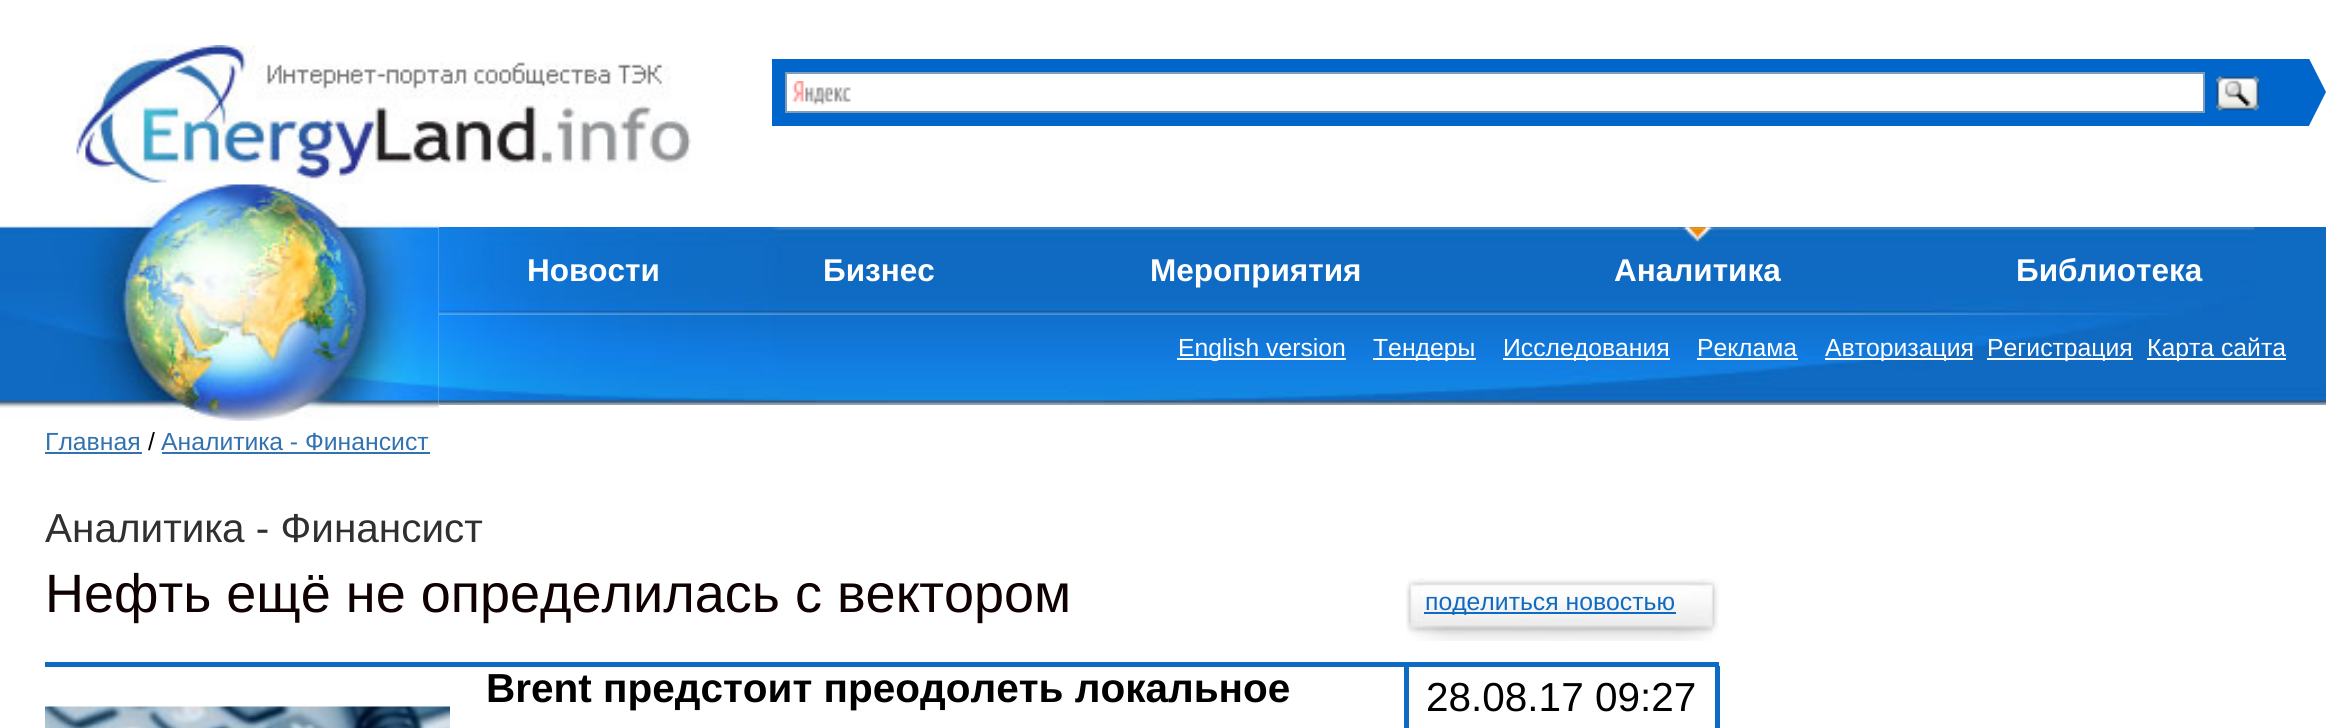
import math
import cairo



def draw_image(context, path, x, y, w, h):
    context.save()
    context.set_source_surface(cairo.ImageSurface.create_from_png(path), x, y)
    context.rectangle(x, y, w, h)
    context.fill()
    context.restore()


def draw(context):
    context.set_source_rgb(1, 1, 1)
    context.paint()
    draw_image(context, "images/1.png", 76, 45, 615, 140)
    context.set_source_rgb(0, 102 / 255, 204 / 255)
    context.rectangle(772, 59, 1487, 67)
    context.fill()
    context.set_source_rgb(1, 1, 1)
    context.rectangle(787, 74, 1416, 37)
    context.fill()
    draw_image(context, "images/2.png", 792, 81, 59, 25)
    context.rectangle(786, 73, 1418, 39)
    context.set_source_rgb(127 / 255, 157 / 255, 185 / 255)
    context.stroke()
    draw_image(context, "images/3.png", 2216, 76, 43, 35)
    context.save()
    context.rectangle(2259, 59, 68, 67)
    context.clip()
    context.set_source_rgb(0, 102 / 255, 204 / 255)
    context.new_path()
    context.move_to(2259, 225)
    context.line_to(2259, -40)
    context.line_to(2326, 92)
    context.close_path()
    context.fill()
    context.restore()
    context.set_source_rgb(15 / 255, 106 / 255, 193 / 255)
    context.rectangle(439, 227, 1887, 88)
    context.fill()
    draw_image(context, "images/5.png", 438, 227, 1817, 88)
    draw_image(context, "images/7.png", 438, 315, 1888, 90)
    draw_image(context, "images/4.png", 0, 184, 439, 237)
    draw_image(context, "images/6.png", 1678, 227, 39, 15)
    context.set_source_rgb(1, 1, 1)
    context.rectangle(1177, 358, 169, 2)
    context.fill()
    context.rectangle(1373, 358, 103, 2)
    context.fill()
    context.rectangle(1503, 358, 167, 2)
    context.fill()
    context.rectangle(1697, 358, 101, 2)
    context.fill()
    context.rectangle(1825, 358, 148, 2)
    context.fill()
    context.rectangle(1987, 358, 146, 2)
    context.fill()
    context.rectangle(2147, 358, 139, 2)
    context.fill()
    context.set_source_rgb(50 / 255, 114 / 255, 176 / 255)
    context.rectangle(45, 452, 97, 2)
    context.fill()
    context.rectangle(162, 452, 268, 2)
    context.fill()
    draw_image(context, "images/8.png", 1406, 578, 313, 63)
    context.set_source_rgb(15 / 255, 107 / 255, 194 / 255)
    context.rectangle(1424, 612, 252, 2)
    context.fill()
    context.set_source_rgb(15 / 255, 106 / 255, 193 / 255)
    context.rectangle(45, 662, 1674, 5)
    context.fill()
    context.rectangle(1715, 666, 5, 62)
    context.fill()
    context.rectangle(1404, 666, 5, 62)
    context.fill()
    draw_image(context, "images/9.png", 45, 706, 405, 22)
    context.select_font_face("Liberation Sans", cairo.FontSlant.NORMAL, cairo.FontWeight.BOLD)
    context.set_font_size(31.5)
    context.set_source_rgb(1, 1, 1)
    context.move_to(527, 281)
    context.show_text("Новости")
    context.move_to(823, 281)
    context.show_text("Бизнес")
    context.move_to(1150, 281)
    context.show_text("Мероприятия")
    context.move_to(1614, 281)
    context.show_text("Аналитика")
    context.move_to(2016, 281)
    context.show_text("Библиотека")
    context.select_font_face("Liberation Sans")
    context.set_font_size(24.75)
    context.move_to(1178, 356)
    context.show_text("English version")
    context.move_to(1373, 356)
    context.show_text("Тендеры")
    context.move_to(1503, 356)
    context.show_text("Исследования")
    context.move_to(1697, 356)
    context.show_text("Реклама")
    context.move_to(1825, 356)
    context.show_text("Авторизация")
    context.move_to(1987, 356)
    context.show_text("Регистрация")
    context.move_to(2147, 356)
    context.show_text("Карта сайта")
    context.set_source_rgb(50 / 255, 114 / 255, 176 / 255)
    context.move_to(45, 450)
    context.show_text("Главная")
    context.set_source_rgb(0, 0, 0)
    context.move_to(148, 450)
    context.show_text("/")
    context.set_source_rgb(50 / 255, 114 / 255, 176 / 255)
    context.move_to(161, 450)
    context.show_text("Аналитика - Финансист")
    context.set_font_size(40.5)
    context.set_source_rgb(48 / 255, 48 / 255, 48 / 255)
    context.move_to(45, 542)
    context.show_text("Аналитика - Финансист")
    context.set_font_size(54)
    context.set_source_rgb(15 / 255, 0, 1 / 255)
    context.move_to(45, 612)
    context.show_text("Нефть ещё не определилась с вектором")
    context.set_font_size(24.75)
    context.set_source_rgb(15 / 255, 107 / 255, 194 / 255)
    context.move_to(1425, 610)
    context.show_text("поделиться новостью")
    context.select_font_face("Liberation Sans", cairo.FontSlant.NORMAL, cairo.FontWeight.BOLD)
    context.set_font_size(40.5)
    context.set_source_rgb(0, 0, 0)
    context.move_to(486, 702)
    context.show_text("Brent предстоит преодолеть локальное")
    context.select_font_face("Liberation Sans")
    context.move_to(1426, 711)
    context.show_text("28.08.17 09:27")


surface = cairo.ImageSurface(cairo.Format.RGB24, 2326, 728)
context = cairo.Context(surface)
options = cairo.FontOptions()
options.set_hint_metrics(cairo.HintMetrics.OFF)
options.set_hint_style(cairo.HintStyle.NONE)
context.set_font_options(options)
context.set_miter_limit(4)
draw(context)
surface.write_to_png("out.png")
